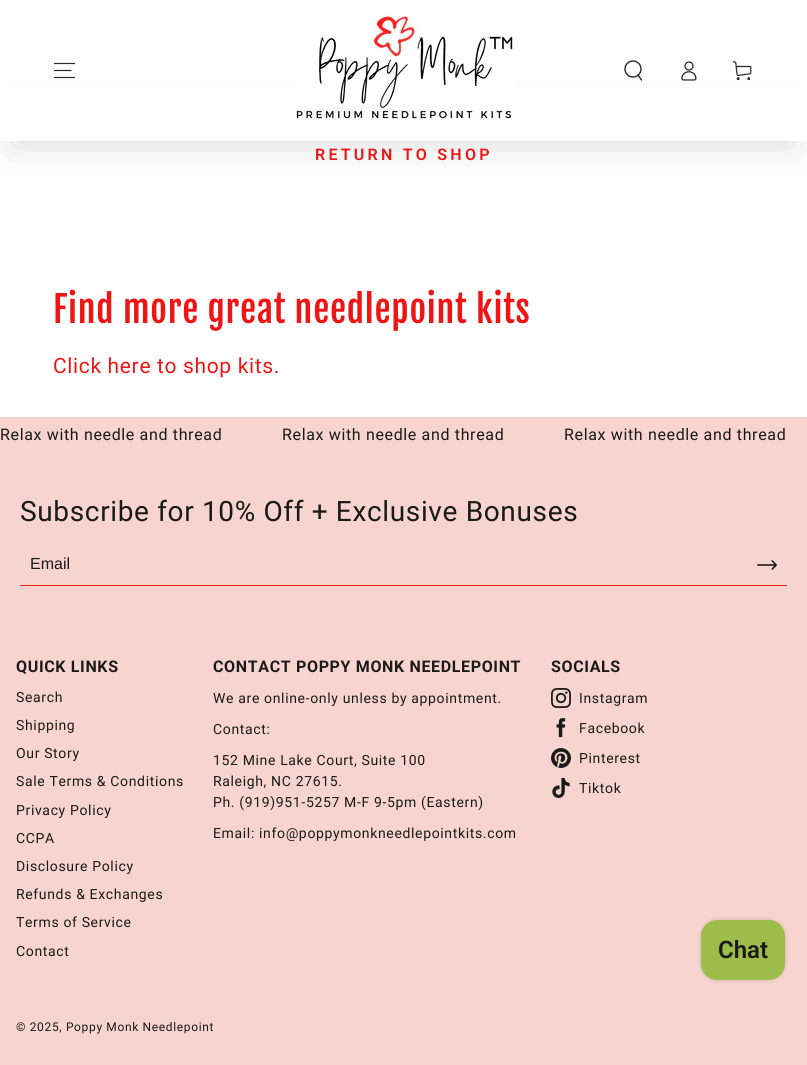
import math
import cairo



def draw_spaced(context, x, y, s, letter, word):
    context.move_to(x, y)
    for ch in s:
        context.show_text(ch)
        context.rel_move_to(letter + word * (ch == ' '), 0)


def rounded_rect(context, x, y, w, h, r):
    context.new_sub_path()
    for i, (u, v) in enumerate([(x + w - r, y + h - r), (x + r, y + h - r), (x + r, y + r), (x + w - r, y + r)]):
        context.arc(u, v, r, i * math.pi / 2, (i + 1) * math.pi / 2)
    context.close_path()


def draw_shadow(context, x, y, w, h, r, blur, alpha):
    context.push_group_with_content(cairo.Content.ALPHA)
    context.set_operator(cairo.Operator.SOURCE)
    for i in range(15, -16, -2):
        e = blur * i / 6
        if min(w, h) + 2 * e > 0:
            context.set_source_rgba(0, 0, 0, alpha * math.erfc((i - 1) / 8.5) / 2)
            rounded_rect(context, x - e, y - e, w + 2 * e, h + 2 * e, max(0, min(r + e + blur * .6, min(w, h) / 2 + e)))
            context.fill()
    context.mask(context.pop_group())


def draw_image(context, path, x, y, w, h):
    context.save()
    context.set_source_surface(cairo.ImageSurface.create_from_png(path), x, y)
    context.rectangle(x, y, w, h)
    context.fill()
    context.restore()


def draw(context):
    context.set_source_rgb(1, 1, 1)
    context.paint()
    context.set_source_rgb(33 / 255, 35 / 255, 38 / 255)
    draw_shadow(context, 16, 120, 775, 21, 10.5, 21, 0.2)
    context.set_source_rgb(1, 1, 1)
    context.rectangle(0, 88, 807, 53)
    context.fill()
    draw_image(context, "images/1.png", 296, 11, 219, 108)
    context.new_path()
    context.move_to(54, 77.5)
    context.line_to(75, 77.5)
    context.move_to(54, 70.5)
    context.line_to(71.5, 70.5)
    context.move_to(54, 63.5)
    context.line_to(75, 63.5)
    context.set_source_rgb(40 / 255, 40 / 255, 40 / 255)
    context.set_line_width(1.2)
    context.stroke()
    context.arc(633, 69, 8, 0, 2 * math.pi)
    context.set_line_width(1.4)
    context.stroke()
    context.new_path()
    context.move_to(638, 75)
    context.line_to(641.5, 80)
    context.set_line_cap(cairo.LineCap.ROUND)
    context.stroke()
    draw_image(context, "images/2.png", 681, 61, 16, 20)
    draw_image(context, "images/3.png", 732, 61, 20, 20)
    context.set_source_rgb(247 / 255, 212 / 255, 207 / 255)
    context.rectangle(0, 417, 807, 648)
    context.fill()
    context.set_source_rgb(215 / 255, 44 / 255, 13 / 255)
    context.rectangle(20, 585, 767, 1)
    context.fill()
    draw_image(context, "images/4.png", 757, 560, 20, 10)
    draw_image(context, "images/5.png", 551, 688, 20, 20)
    draw_image(context, "images/6.png", 556, 718, 10, 20)
    draw_image(context, "images/7.png", 551, 748, 20, 20)
    draw_image(context, "images/8.png", 552, 778, 18, 20)
    context.set_source_rgb(0, 0, 0)
    draw_shadow(context, 701, 920, 84, 60, 16, 2.5, 0.15)
    context.set_source_rgb(158 / 255, 188 / 255, 74 / 255)
    rounded_rect(context, 701, 920, 84, 60, 16)
    context.fill()
    context.select_font_face("Roboto SemiBold")
    context.set_font_size(16)
    context.set_source_rgb(239 / 255, 21 / 255, 21 / 255)
    draw_spaced(context, 315, 160, "RETURN TO SHOP", 3.25, 0)
    context.select_font_face("Fjalla One")
    context.set_font_size(36)
    draw_spaced(context, 53, 323, "Find more great needlepoint kits", 0.75, 0)
    context.select_font_face("Roboto")
    context.set_font_size(21)
    draw_spaced(context, 53, 373, "Click here to shop kits.", 0.65, 0)
    context.set_font_size(16)
    context.set_source_rgb(26 / 255, 27 / 255, 24 / 255)
    draw_spaced(context, 0, 440, "Relax with needle and thread", 0.65, 0)
    draw_spaced(context, 282, 440, "Relax with needle and thread", 0.65, 0)
    draw_spaced(context, 564, 440, "Relax with needle and thread", 0.65, 0)
    context.set_font_size(28)
    draw_spaced(context, 20, 521, "Subscribe for 10% Off + Exclusive Bonuses", 0.65, 0)
    context.select_font_face("Liberation Sans")
    context.set_font_size(16)
    context.move_to(30, 569)
    context.show_text("Email")
    context.select_font_face("Roboto", cairo.FontSlant.NORMAL, cairo.FontWeight.BOLD)
    draw_spaced(context, 16, 672, "QUICK LINKS", 0.65, 0)
    context.select_font_face("Roboto")
    context.set_font_size(14)
    draw_spaced(context, 16, 702, "Search", 0.65, 0)
    draw_spaced(context, 16, 730, "Shipping", 0.65, 0)
    draw_spaced(context, 16, 758, "Our Story", 0.65, 0)
    draw_spaced(context, 16, 786, "Sale Terms & Conditions", 0.65, 0)
    draw_spaced(context, 16, 815, "Privacy Policy", 0.65, 0)
    draw_spaced(context, 16, 843, "CCPA", 0.65, 0)
    draw_spaced(context, 16, 871, "Disclosure Policy", 0.65, 0)
    draw_spaced(context, 16, 899, "Refunds & Exchanges", 0.65, 0)
    draw_spaced(context, 16, 927, "Terms of Service", 0.65, 0)
    draw_spaced(context, 16, 956, "Contact", 0.65, 0)
    context.select_font_face("Roboto", cairo.FontSlant.NORMAL, cairo.FontWeight.BOLD)
    context.set_font_size(16)
    draw_spaced(context, 213, 672, "CONTACT POPPY MONK NEEDLEPOINT", 0.65, 0)
    context.select_font_face("Roboto")
    context.set_font_size(14)
    draw_spaced(context, 213, 703, "We are online-only unless by appointment.", 0.65, 0)
    draw_spaced(context, 213, 734, "Contact:", 0.65, 0)
    draw_spaced(context, 213, 765, "152 Mine Lake Court, Suite 100", 0.65, 0)
    draw_spaced(context, 213, 786, "Raleigh, NC 27615.", 0.65, 0)
    draw_spaced(context, 213, 807, "Ph. (919)951-5257 M-F 9-5pm (Eastern)", 0.65, 0)
    draw_spaced(context, 213, 838, "Email: info@poppymonkneedlepointkits.com", 0.65, 0)
    context.select_font_face("Roboto", cairo.FontSlant.NORMAL, cairo.FontWeight.BOLD)
    context.set_font_size(16)
    draw_spaced(context, 551, 672, "SOCIALS", 0.65, 0)
    context.select_font_face("Roboto")
    context.set_font_size(14)
    draw_spaced(context, 579, 703, "Instagram", 0.65, 0)
    draw_spaced(context, 579, 733, "Facebook", 0.65, 0)
    draw_spaced(context, 579, 763, "Pinterest", 0.65, 0)
    draw_spaced(context, 579, 793, "Tiktok", 0.65, 0)
    context.set_font_size(12)
    draw_spaced(context, 16, 1031, "© 2025, Poppy Monk Needlepoint", 0.65, 0)
    context.select_font_face("Roboto SemiBold")
    context.set_font_size(24)
    context.move_to(718, 958)
    context.show_text("Chat")


surface = cairo.ImageSurface(cairo.Format.RGB24, 807, 1065)
context = cairo.Context(surface)
options = cairo.FontOptions()
options.set_hint_metrics(cairo.HintMetrics.OFF)
options.set_hint_style(cairo.HintStyle.NONE)
context.set_font_options(options)
context.set_miter_limit(4)
draw(context)
surface.write_to_png("out.png")
